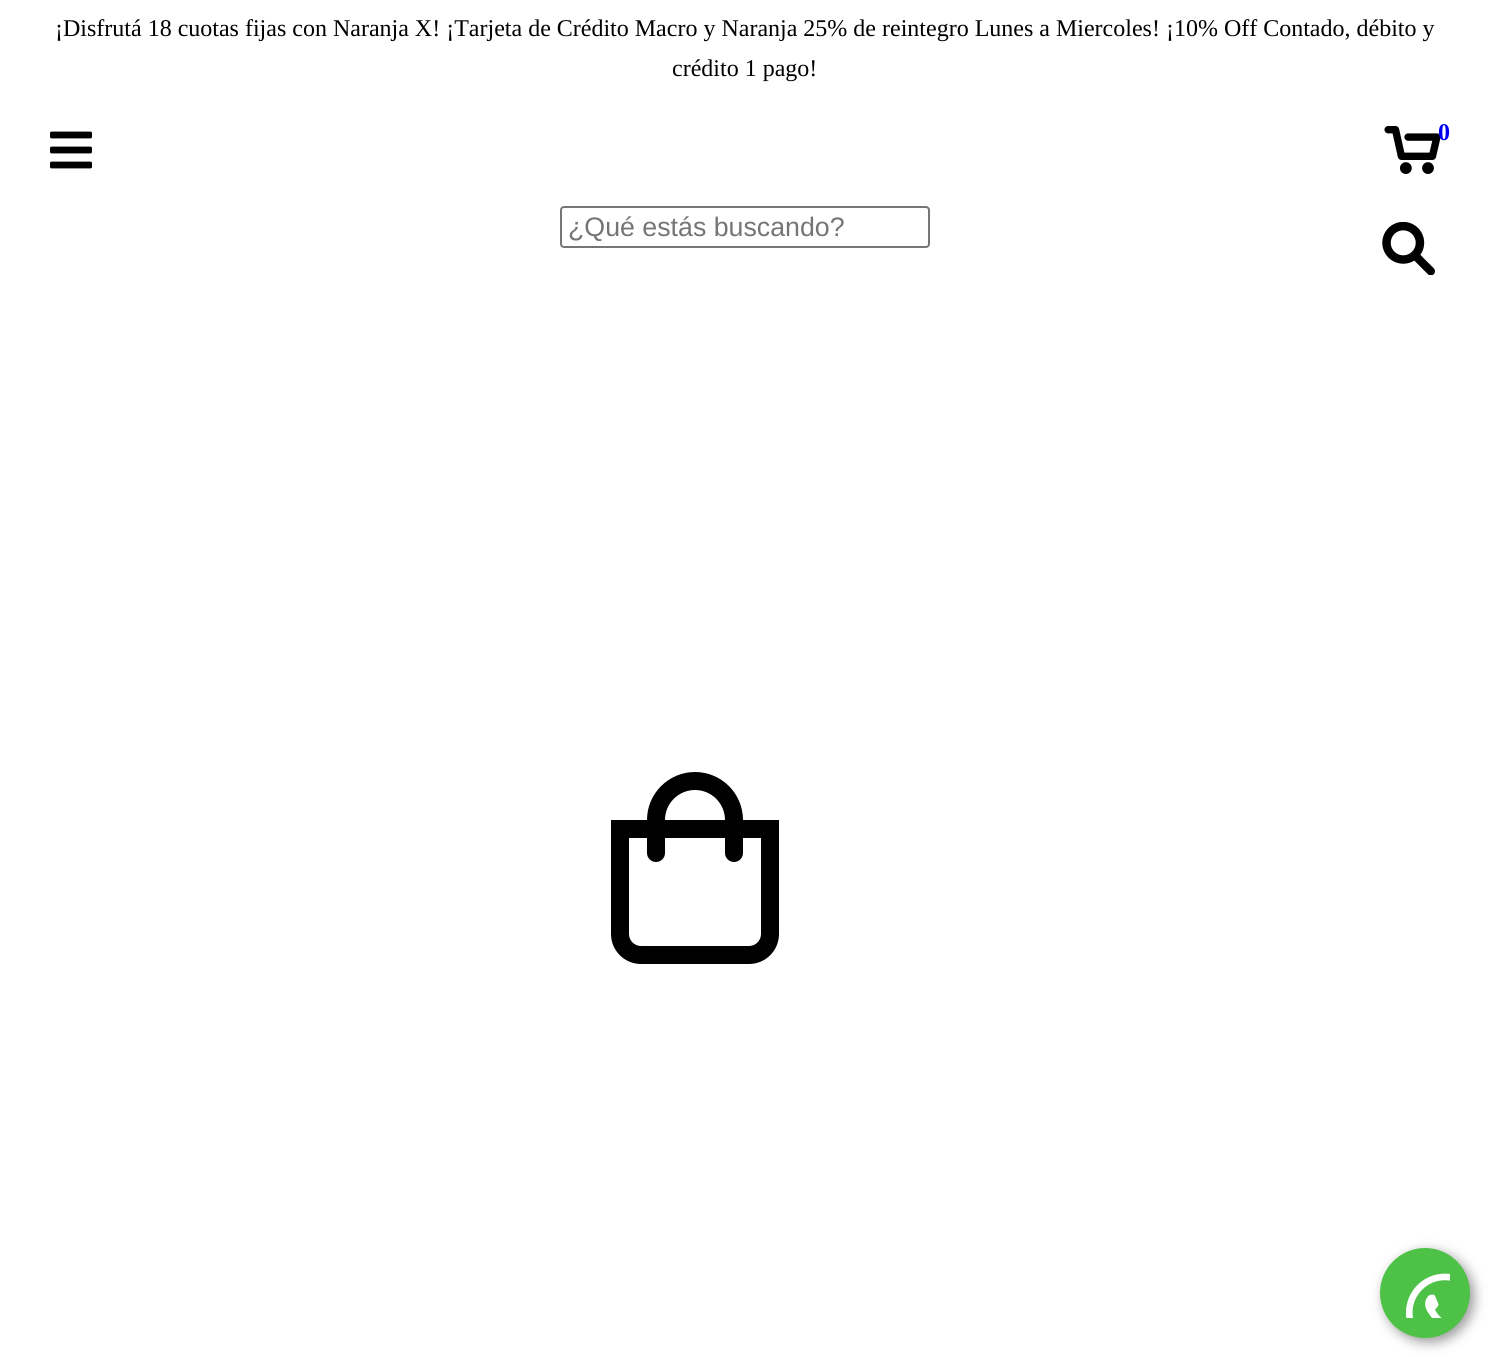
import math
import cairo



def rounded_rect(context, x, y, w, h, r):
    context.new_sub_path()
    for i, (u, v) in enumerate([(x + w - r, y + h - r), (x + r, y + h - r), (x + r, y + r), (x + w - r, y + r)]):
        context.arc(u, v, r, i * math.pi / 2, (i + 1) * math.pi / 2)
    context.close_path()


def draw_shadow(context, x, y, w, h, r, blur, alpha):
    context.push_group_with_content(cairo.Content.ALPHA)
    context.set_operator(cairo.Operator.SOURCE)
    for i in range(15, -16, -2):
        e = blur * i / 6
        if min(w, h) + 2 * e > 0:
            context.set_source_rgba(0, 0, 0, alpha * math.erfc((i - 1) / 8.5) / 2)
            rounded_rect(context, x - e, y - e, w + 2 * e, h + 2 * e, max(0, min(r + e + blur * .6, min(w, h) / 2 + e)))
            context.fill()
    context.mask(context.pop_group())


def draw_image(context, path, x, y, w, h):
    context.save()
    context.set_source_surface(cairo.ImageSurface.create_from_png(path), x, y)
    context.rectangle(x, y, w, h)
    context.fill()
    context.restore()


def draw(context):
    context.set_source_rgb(1, 1, 1)
    context.paint()
    draw_image(context, "images/1.png", 50, 131, 42, 38)
    draw_image(context, "images/2.png", 1384, 126, 57, 48)
    rounded_rect(context, 561, 207, 368, 40, 3)
    context.set_source_rgb(118 / 255, 118 / 255, 118 / 255)
    context.stroke()
    draw_image(context, "images/3.png", 1382, 222, 53, 53)
    draw_image(context, "images/4.png", 611, 772, 168, 192)
    context.set_source_rgb(0, 0, 0)
    draw_shadow(context, 1384, 1252, 90, 90, 45, 6, 0.4)
    context.set_source_rgb(77 / 255, 194 / 255, 71 / 255)
    context.arc(1425, 1293, 45, 0, 2 * math.pi)
    context.fill()
    draw_image(context, "images/5.png", 1405, 1273, 45, 45)
    context.select_font_face("Liberation Serif")
    context.set_font_size(24)
    context.set_source_rgb(0, 0, 0)
    context.move_to(55, 36)
    context.show_text("¡Disfrutá 18 cuotas fijas con Naranja X! ¡Tarjeta de Crédito Macro y Naranja 25% de reintegro Lunes a Miercoles! ¡10% Off Contado, débito y")
    context.move_to(672, 76)
    context.show_text("crédito 1 pago!")
    context.select_font_face("Liberation Serif", cairo.FontSlant.NORMAL, cairo.FontWeight.BOLD)
    context.set_source_rgb(0, 0, 238 / 255)
    context.move_to(1438, 140)
    context.show_text("0")
    context.select_font_face("Liberation Sans")
    context.set_font_size(26.75)
    context.set_source_rgb(117 / 255, 117 / 255, 117 / 255)
    context.move_to(568, 236)
    context.show_text("¿Qué estás buscando?")


surface = cairo.ImageSurface(cairo.Format.RGB24, 1490, 1357)
context = cairo.Context(surface)
options = cairo.FontOptions()
options.set_hint_metrics(cairo.HintMetrics.OFF)
options.set_hint_style(cairo.HintStyle.NONE)
context.set_font_options(options)
context.set_miter_limit(4)
draw(context)
surface.write_to_png("out.png")
